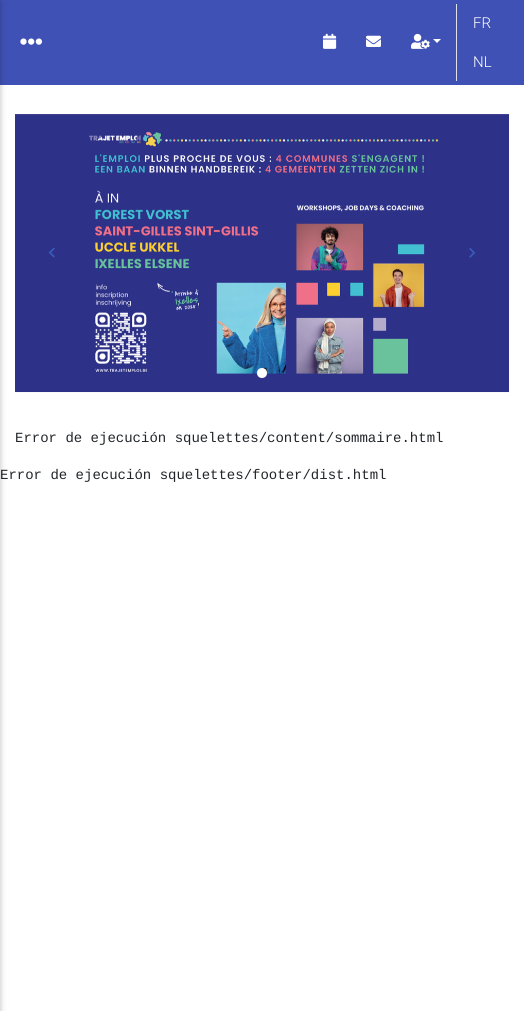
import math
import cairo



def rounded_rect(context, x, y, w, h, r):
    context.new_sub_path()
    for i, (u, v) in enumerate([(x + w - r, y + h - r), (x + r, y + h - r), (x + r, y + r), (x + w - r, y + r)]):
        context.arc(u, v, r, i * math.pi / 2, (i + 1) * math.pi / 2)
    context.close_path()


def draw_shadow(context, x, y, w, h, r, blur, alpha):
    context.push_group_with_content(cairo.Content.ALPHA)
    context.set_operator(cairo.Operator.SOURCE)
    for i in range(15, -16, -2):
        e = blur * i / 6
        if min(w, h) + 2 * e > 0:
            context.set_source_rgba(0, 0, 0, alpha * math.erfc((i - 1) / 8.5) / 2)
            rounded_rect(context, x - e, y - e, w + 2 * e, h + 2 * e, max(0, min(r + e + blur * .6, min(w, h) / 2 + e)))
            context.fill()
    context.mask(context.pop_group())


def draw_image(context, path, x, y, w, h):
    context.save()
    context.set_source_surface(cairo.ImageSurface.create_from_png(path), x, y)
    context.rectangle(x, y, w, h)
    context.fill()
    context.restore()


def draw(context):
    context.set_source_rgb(1, 1, 1)
    context.paint()
    context.set_source_rgb(63 / 255, 81 / 255, 181 / 255)
    context.rectangle(0, 0, 524, 85)
    context.fill()
    draw_image(context, "images/5.png", 15, 114, 494, 279)
    context.set_source_rgb(0, 0, 0)
    draw_shadow(context, -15, 2, 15, 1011, 0, 5, 0.12)
    draw_shadow(context, -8, 2, 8, 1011, 0, 2.5, 0.16)
    draw_image(context, "images/1.png", 20, 38, 22, 7)
    draw_image(context, "images/2.png", 323, 33, 14, 16)
    draw_image(context, "images/3.png", 366, 35, 15, 12)
    draw_image(context, "images/4.png", 411, 33, 19, 16)
    context.set_source_rgb(1, 1, 1)
    context.new_path()
    context.move_to(433, 39)
    context.line_to(441, 39)
    context.line_to(437, 43)
    context.close_path()
    context.fill()
    context.set_source_rgb(222 / 255, 226 / 255, 230 / 255)
    context.rectangle(456, 4, 1, 77)
    context.fill()
    draw_image(context, "images/6.png", 48, 247, 7, 11)
    draw_image(context, "images/7.png", 469, 248, 7, 10)
    context.set_source_rgb(1, 1, 1)
    context.arc(262, 373, 5, 0, 2 * math.pi)
    context.fill()
    context.select_font_face("Roboto Light")
    context.set_font_size(15)
    context.move_to(473, 28)
    context.show_text("FR")
    context.move_to(473, 67)
    context.show_text("NL")
    context.select_font_face("Liberation Mono")
    context.set_font_size(14)
    context.set_source_rgb(33 / 255, 37 / 255, 41 / 255)
    context.move_to(15, 442)
    context.show_text("Error de ejecución squelettes/content/sommaire.html")
    context.move_to(0, 479)
    context.show_text("Error de ejecución squelettes/footer/dist.html")


surface = cairo.ImageSurface(cairo.Format.RGB24, 524, 1011)
context = cairo.Context(surface)
options = cairo.FontOptions()
options.set_hint_metrics(cairo.HintMetrics.OFF)
options.set_hint_style(cairo.HintStyle.NONE)
context.set_font_options(options)
context.set_miter_limit(4)
draw(context)
surface.write_to_png("out.png")
